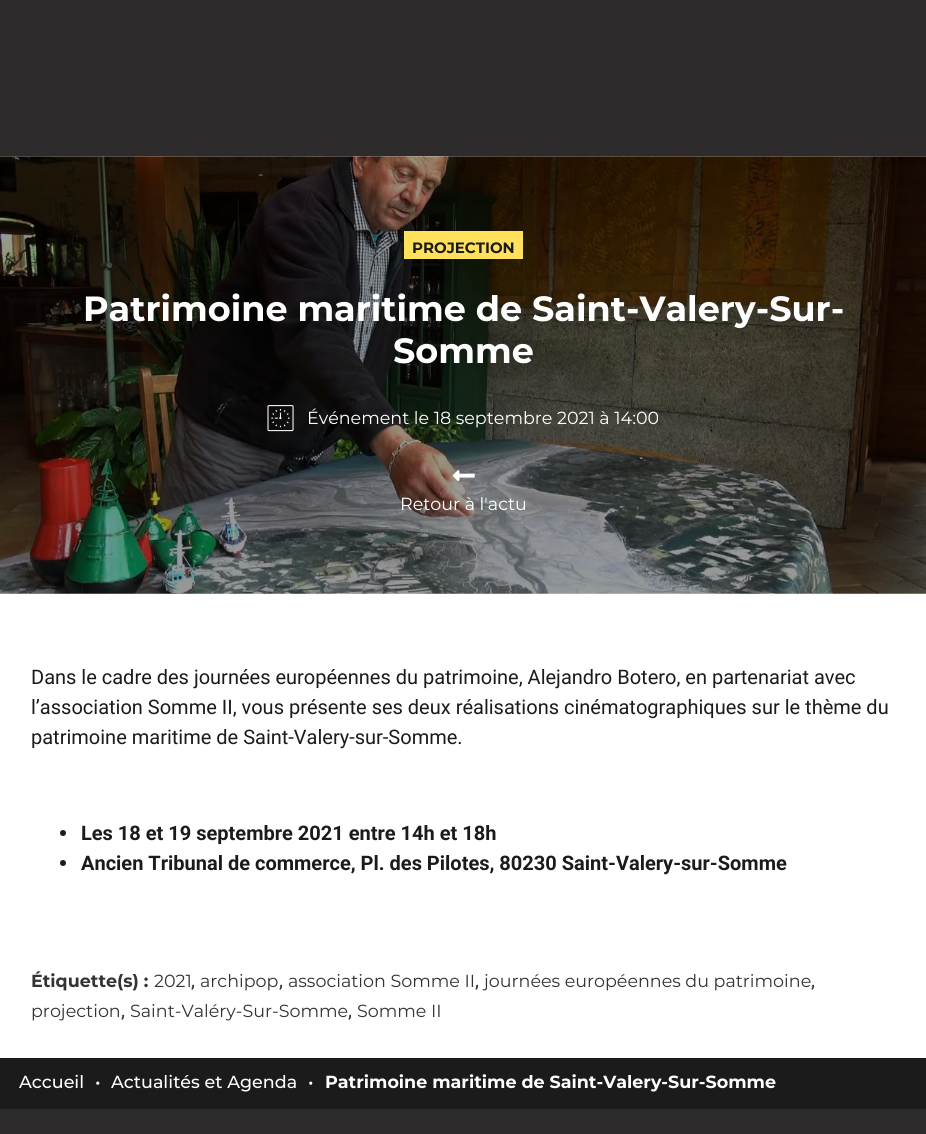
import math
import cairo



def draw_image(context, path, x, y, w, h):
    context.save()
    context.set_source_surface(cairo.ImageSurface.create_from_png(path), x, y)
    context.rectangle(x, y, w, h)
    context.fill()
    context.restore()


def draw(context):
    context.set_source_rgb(1, 1, 1)
    context.paint()
    context.set_source_rgb(45 / 255, 43 / 255, 43 / 255)
    context.rectangle(0, 0, 926, 156)
    context.fill()
    draw_image(context, "images/1.png", 0, 156, 926, 438)
    context.set_source_rgb(1, 225 / 255, 92 / 255)
    context.rectangle(404, 231, 119, 28)
    context.fill()
    draw_image(context, "images/2.png", 267, 405, 27, 27)
    draw_image(context, "images/3.png", 452, 470, 23, 11)
    context.set_source_rgb(28 / 255, 27 / 255, 27 / 255)
    context.arc(63, 833, 3, 0, 2 * math.pi)
    context.fill()
    context.arc(63, 863, 3, 0, 2 * math.pi)
    context.fill()
    context.rectangle(0, 1058, 926, 51)
    context.fill()
    context.set_source_rgb(45 / 255, 43 / 255, 43 / 255)
    context.rectangle(0, 1109, 926, 25)
    context.fill()
    context.select_font_face("Montserrat", cairo.FontSlant.NORMAL, cairo.FontWeight.BOLD)
    context.set_font_size(15)
    context.set_source_rgb(28 / 255, 27 / 255, 27 / 255)
    context.move_to(412, 253)
    context.show_text("PROJECTION")
    context.set_font_size(35)
    context.set_source_rgb(1, 1, 1)
    context.move_to(83, 321)
    context.show_text("Patrimoine maritime de Saint-Valery-Sur-")
    context.move_to(393, 363)
    context.show_text("Somme")
    context.select_font_face("Montserrat")
    context.set_font_size(17.5)
    context.move_to(307, 424)
    context.show_text("Événement le 18 septembre 2021 à 14:00")
    context.move_to(400, 510)
    context.show_text("Retour à l'actu")
    context.select_font_face("Roboto")
    context.set_font_size(20)
    context.set_source_rgb(28 / 255, 27 / 255, 27 / 255)
    context.move_to(31, 684)
    context.show_text("Dans le cadre des journées européennes du patrimoine, Alejandro Botero, en partenariat avec")
    context.move_to(31, 714)
    context.show_text("l’association Somme II, vous présente ses deux réalisations cinématographiques sur le thème du")
    context.move_to(31, 744)
    context.show_text("patrimoine maritime de Saint-Valery-sur-Somme.")
    context.select_font_face("Roboto", cairo.FontSlant.NORMAL, cairo.FontWeight.BOLD)
    context.move_to(81, 840)
    context.show_text("Les 18 et 19 septembre 2021 entre 14h et 18h")
    context.move_to(81, 870)
    context.show_text("Ancien Tribunal de commerce, Pl. des Pilotes, 80230 Saint-Valery-sur-Somme")
    context.select_font_face("Montserrat", cairo.FontSlant.NORMAL, cairo.FontWeight.BOLD)
    context.set_font_size(17.5)
    context.set_source_rgb(51 / 255, 51 / 255, 51 / 255)
    context.move_to(31, 987)
    context.show_text("Étiquette(s) :")
    context.select_font_face("Montserrat")
    context.move_to(154, 987)
    context.show_text("2021")
    context.select_font_face("Roboto")
    context.set_font_size(20)
    context.move_to(191, 987)
    context.show_text(",")
    context.select_font_face("Montserrat")
    context.set_font_size(17.5)
    context.move_to(200, 987)
    context.show_text("archipop")
    context.select_font_face("Roboto")
    context.set_font_size(20)
    context.move_to(279, 987)
    context.show_text(",")
    context.select_font_face("Montserrat")
    context.set_font_size(17.5)
    context.move_to(288, 987)
    context.show_text("association Somme II")
    context.select_font_face("Roboto")
    context.set_font_size(20)
    context.move_to(475, 987)
    context.show_text(",")
    context.select_font_face("Montserrat")
    context.set_font_size(17.5)
    context.move_to(484, 987)
    context.show_text("journées européennes du patrimoine")
    context.select_font_face("Roboto")
    context.set_font_size(20)
    context.move_to(811, 987)
    context.show_text(",")
    context.select_font_face("Montserrat")
    context.set_font_size(17.5)
    context.move_to(31, 1017)
    context.show_text("projection")
    context.select_font_face("Roboto")
    context.set_font_size(20)
    context.move_to(121, 1017)
    context.show_text(",")
    context.select_font_face("Montserrat")
    context.set_font_size(17.5)
    context.move_to(130, 1017)
    context.show_text("Saint-Valéry-Sur-Somme")
    context.select_font_face("Roboto")
    context.set_font_size(20)
    context.move_to(348, 1017)
    context.show_text(",")
    context.select_font_face("Montserrat")
    context.set_font_size(17.5)
    context.move_to(357, 1017)
    context.show_text("Somme II")
    context.select_font_face("Montserrat Medium")
    context.set_source_rgb(1, 1, 1)
    context.move_to(19, 1088)
    context.show_text("Accueil")
    context.move_to(95, 1088)
    context.show_text("•")
    context.move_to(111, 1088)
    context.show_text("Actualités et Agenda")
    context.move_to(308, 1088)
    context.show_text("•")
    context.select_font_face("Montserrat", cairo.FontSlant.NORMAL, cairo.FontWeight.BOLD)
    context.move_to(325, 1088)
    context.show_text("Patrimoine maritime de Saint-Valery-Sur-Somme")


surface = cairo.ImageSurface(cairo.Format.RGB24, 926, 1134)
context = cairo.Context(surface)
options = cairo.FontOptions()
options.set_hint_metrics(cairo.HintMetrics.OFF)
options.set_hint_style(cairo.HintStyle.NONE)
context.set_font_options(options)
context.set_miter_limit(4)
draw(context)
surface.write_to_png("out.png")
